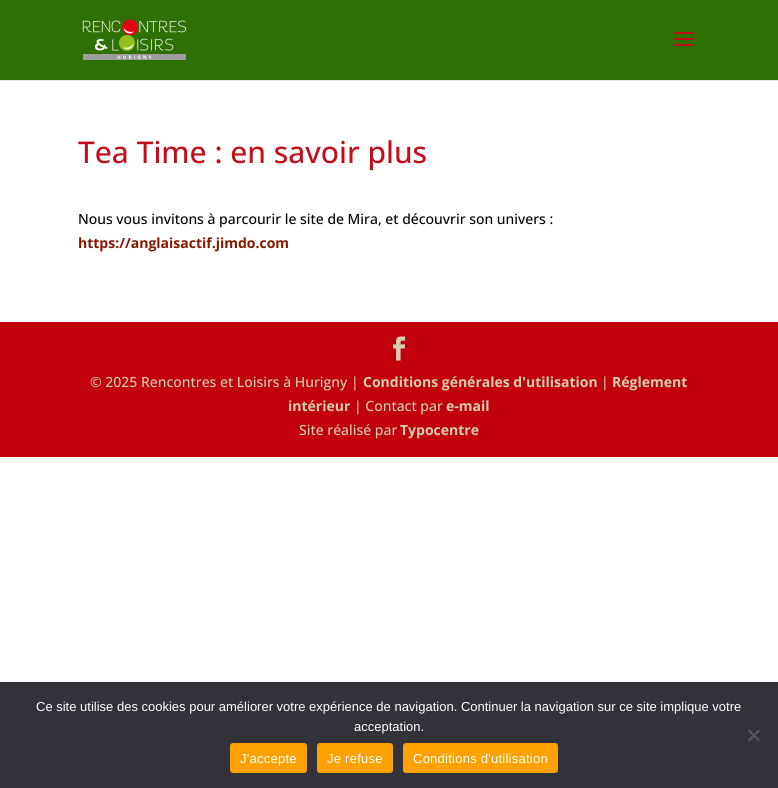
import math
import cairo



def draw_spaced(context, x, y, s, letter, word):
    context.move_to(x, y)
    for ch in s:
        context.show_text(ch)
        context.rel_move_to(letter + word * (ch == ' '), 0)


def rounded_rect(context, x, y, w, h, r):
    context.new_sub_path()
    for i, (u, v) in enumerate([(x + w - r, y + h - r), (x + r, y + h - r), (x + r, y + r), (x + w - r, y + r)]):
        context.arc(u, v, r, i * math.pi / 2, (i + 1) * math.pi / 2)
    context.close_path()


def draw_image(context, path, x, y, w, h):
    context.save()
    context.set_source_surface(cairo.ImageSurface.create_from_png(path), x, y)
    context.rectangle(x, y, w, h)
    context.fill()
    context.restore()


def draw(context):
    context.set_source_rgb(1, 1, 1)
    context.paint()
    context.set_source_rgb(230 / 255, 230 / 255, 230 / 255)
    context.rectangle(0, 80, 778, 1)
    context.fill()
    context.set_source_rgb(47 / 255, 112 / 255, 4 / 255)
    context.rectangle(0, 0, 778, 80)
    context.fill()
    draw_image(context, "images/1.png", 82, 19, 105, 41)
    draw_image(context, "images/2.png", 674, 32, 20, 14)
    context.set_source_rgb(193 / 255, 0, 12 / 255)
    context.rectangle(0, 322, 778, 135)
    context.fill()
    draw_image(context, "images/3.png", 393, 336, 13, 25)
    context.set_source_rgb(50 / 255, 50 / 255, 58 / 255)
    context.rectangle(0, 682, 778, 106)
    context.fill()
    context.set_source_rgb(89 / 255, 89 / 255, 93 / 255)
    context.new_path()
    context.move_to(758.5, 729.5)
    context.line_to(760, 731)
    context.line_to(749.5, 741.5)
    context.line_to(748, 740)
    context.close_path()
    context.fill()
    context.new_path()
    context.move_to(748, 731)
    context.line_to(749.5, 729.5)
    context.line_to(760, 740)
    context.line_to(758.5, 741.5)
    context.close_path()
    context.fill()
    context.set_source_rgb(1, 161 / 255, 0)
    rounded_rect(context, 230, 743, 77, 30, 3)
    context.fill()
    rounded_rect(context, 317, 743, 76, 30, 3)
    context.fill()
    rounded_rect(context, 403, 743, 155, 30, 3)
    context.fill()
    context.select_font_face("Open Sans Medium")
    context.set_font_size(30)
    context.set_source_rgb(194 / 255, 14 / 255, 26 / 255)
    context.move_to(78, 163)
    context.show_text("Tea Time : en savoir plus")
    context.set_font_size(14)
    context.set_source_rgb(0, 0, 0)
    context.move_to(78, 224)
    context.show_text("Nous vous invitons à parcourir le site de Mira, et découvrir son univers :")
    context.select_font_face("Open Sans", cairo.FontSlant.NORMAL, cairo.FontWeight.BOLD)
    context.set_source_rgb(135 / 255, 24 / 255, 0)
    context.move_to(78, 248)
    context.show_text("https://anglaisactif.jimdo.com")
    context.select_font_face("Open Sans Medium")
    context.set_source_rgb(214 / 255, 207 / 255, 175 / 255)
    context.move_to(90, 387)
    context.show_text("© 2025 Rencontres et Loisirs à Hurigny |")
    context.select_font_face("Open Sans", cairo.FontSlant.NORMAL, cairo.FontWeight.BOLD)
    context.move_to(363, 387)
    context.show_text("Conditions générales d'utilisation")
    context.select_font_face("Open Sans Medium")
    context.move_to(601, 387)
    context.show_text("|")
    context.select_font_face("Open Sans", cairo.FontSlant.NORMAL, cairo.FontWeight.BOLD)
    context.move_to(612, 387)
    context.show_text("Réglement")
    context.move_to(288, 411)
    context.show_text("intérieur")
    context.select_font_face("Open Sans Medium")
    context.move_to(354, 411)
    context.show_text("| Contact par")
    context.select_font_face("Open Sans", cairo.FontSlant.NORMAL, cairo.FontWeight.BOLD)
    context.move_to(446, 411)
    context.show_text("e-mail")
    context.select_font_face("Open Sans Medium")
    context.move_to(299, 435)
    context.show_text("Site réalisé par")
    context.select_font_face("Open Sans", cairo.FontSlant.NORMAL, cairo.FontWeight.BOLD)
    context.move_to(400, 435)
    context.show_text("Typocentre")
    context.select_font_face("Liberation Sans")
    context.set_font_size(13)
    context.set_source_rgb(1, 1, 1)
    context.move_to(36, 711)
    context.show_text("Ce site utilise des cookies pour améliorer votre expérience de navigation. Continuer la navigation sur ce site implique votre")
    context.move_to(354, 731)
    context.show_text("acceptation.")
    draw_spaced(context, 240, 763, "J'accepte", 0.25, 0)
    draw_spaced(context, 327, 763, "Je refuse", 0.25, 0)
    draw_spaced(context, 413, 763, "Conditions d'utilisation", 0.25, 0)


surface = cairo.ImageSurface(cairo.Format.RGB24, 778, 788)
context = cairo.Context(surface)
options = cairo.FontOptions()
options.set_hint_metrics(cairo.HintMetrics.OFF)
options.set_hint_style(cairo.HintStyle.NONE)
context.set_font_options(options)
context.set_miter_limit(4)
draw(context)
surface.write_to_png("out.png")
